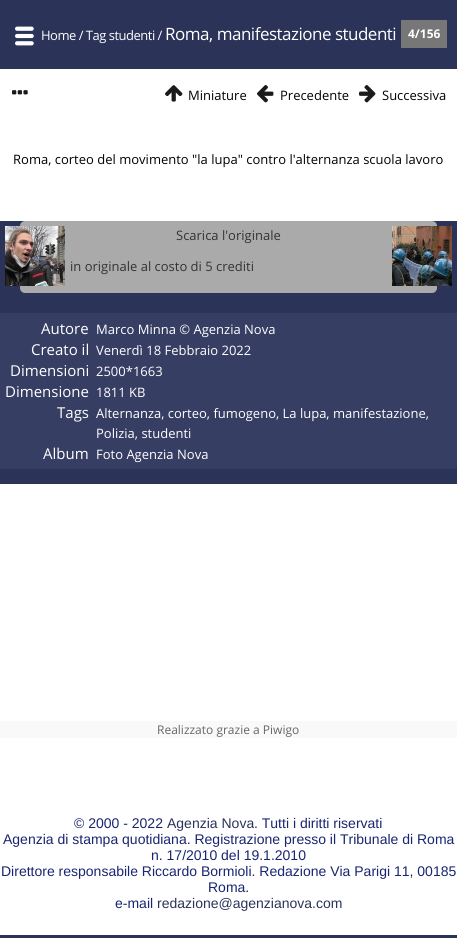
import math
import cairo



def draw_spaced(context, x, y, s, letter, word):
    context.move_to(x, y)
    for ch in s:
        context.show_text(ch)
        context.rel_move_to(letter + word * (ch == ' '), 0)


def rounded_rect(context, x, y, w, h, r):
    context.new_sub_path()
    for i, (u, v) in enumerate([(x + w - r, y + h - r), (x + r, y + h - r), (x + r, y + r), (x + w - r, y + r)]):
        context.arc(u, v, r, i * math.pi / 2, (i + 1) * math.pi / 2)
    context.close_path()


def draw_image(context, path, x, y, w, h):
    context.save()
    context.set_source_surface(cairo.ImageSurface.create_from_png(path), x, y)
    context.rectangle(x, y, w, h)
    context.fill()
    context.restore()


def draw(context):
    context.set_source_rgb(1, 1, 1)
    context.paint()
    context.set_source_rgb(43 / 255, 51 / 255, 88 / 255)
    context.rectangle(0, 0, 457, 69)
    context.fill()
    draw_image(context, "images/1.png", 15, 26, 19, 20)
    context.set_source_rgb(119 / 255, 119 / 255, 119 / 255)
    context.rectangle(401, 20, 46, 28)
    context.fill()
    context.set_source_rgb(43 / 255, 51 / 255, 88 / 255)
    context.rectangle(0, 221, 457, 263)
    context.fill()
    context.set_source_rgb(170 / 255, 170 / 255, 170 / 255)
    rounded_rect(context, 20, 221, 417, 72, 5)
    context.fill()
    draw_image(context, "images/2.png", 5, 226, 60, 60)
    draw_image(context, "images/3.png", 392, 226, 60, 60)
    context.set_source_rgb(54 / 255, 62 / 255, 99 / 255)
    context.rectangle(0, 313, 457, 156)
    context.fill()
    context.set_source_rgb(249 / 255, 249 / 255, 249 / 255)
    context.rectangle(0, 721, 457, 17)
    context.fill()
    context.set_source_rgb(43 / 255, 51 / 255, 88 / 255)
    context.rectangle(0, 935, 457, 3)
    context.fill()
    context.select_font_face("Open Sans")
    context.set_font_size(13)
    context.set_source_rgb(1, 1, 1)
    draw_spaced(context, 41, 40, "Home / Tag studenti /", -0.5, 0)
    context.set_font_size(17)
    draw_spaced(context, 165, 40, "Roma, manifestazione studenti", -0.5, 0)
    context.select_font_face("Open Sans", cairo.FontSlant.NORMAL, cairo.FontWeight.BOLD)
    context.set_font_size(12)
    context.move_to(408, 38)
    context.show_text("4/156")
    context.select_font_face("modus")
    context.set_font_size(20)
    context.set_source_rgb(26 / 255, 26 / 255, 26 / 255)
    context.move_to(12, 100)
    context.show_text("…")
    context.move_to(165, 100)
    context.show_text("↑")
    context.select_font_face("Open Sans")
    context.set_font_size(13)
    context.set_source_rgb(0, 0, 0)
    context.move_to(188, 100)
    context.show_text("Miniature")
    context.select_font_face("modus")
    context.set_font_size(20)
    context.set_source_rgb(26 / 255, 26 / 255, 26 / 255)
    context.move_to(257, 100)
    context.show_text("←")
    context.select_font_face("Open Sans")
    context.set_font_size(13)
    context.set_source_rgb(0, 0, 0)
    context.move_to(280, 100)
    context.show_text("Precedente")
    context.select_font_face("modus")
    context.set_font_size(20)
    context.set_source_rgb(26 / 255, 26 / 255, 26 / 255)
    context.move_to(359, 100)
    context.show_text("→")
    context.select_font_face("Open Sans")
    context.set_font_size(13)
    context.set_source_rgb(0, 0, 0)
    context.move_to(382, 100)
    context.show_text("Successiva")
    context.move_to(13, 164)
    context.show_text("Roma, corteo del movimento \"la lupa\" contro l'alternanza scuola lavoro")
    context.set_source_rgb(51 / 255, 51 / 255, 51 / 255)
    context.move_to(176, 240)
    context.show_text("Scarica l'originale")
    context.move_to(70, 271)
    context.show_text("in originale al costo di 5 crediti")
    context.set_font_size(15)
    context.set_source_rgb(1, 1, 1)
    context.move_to(41, 334)
    context.show_text("Autore")
    context.set_font_size(13)
    context.move_to(96, 334)
    context.show_text("Marco Minna © Agenzia Nova")
    context.set_font_size(15)
    context.move_to(31, 355)
    context.show_text("Creato il")
    context.set_font_size(13)
    context.move_to(96, 355)
    context.show_text("Venerdì 18 Febbraio 2022")
    context.set_font_size(15)
    context.move_to(10, 376)
    context.show_text("Dimensioni")
    context.set_font_size(13)
    context.move_to(96, 376)
    context.show_text("2500*1663")
    context.set_font_size(15)
    context.move_to(5, 397)
    context.show_text("Dimensione")
    context.set_font_size(13)
    context.move_to(96, 397)
    context.show_text("1811 KB")
    context.set_font_size(15)
    context.move_to(57, 418)
    context.show_text("Tags")
    context.set_font_size(13)
    context.move_to(96, 418)
    context.show_text("Alternanza, corteo, fumogeno, La lupa, manifestazione,")
    context.move_to(96, 438)
    context.show_text("Polizia, studenti")
    context.set_font_size(15)
    context.move_to(43, 459)
    context.show_text("Album")
    context.set_font_size(13)
    context.move_to(96, 459)
    context.show_text("Foto Agenzia Nova")
    context.set_font_size(12)
    context.set_source_rgb(102 / 255, 102 / 255, 102 / 255)
    context.move_to(157, 734)
    context.show_text("Realizzato grazie a Piwigo")
    context.select_font_face("Liberation Sans")
    context.set_font_size(14)
    context.set_source_rgb(24 / 255, 37 / 255, 112 / 255)
    context.move_to(74, 828)
    context.show_text("© 2000 - 2022")
    context.set_source_rgb(43 / 255, 51 / 255, 88 / 255)
    context.move_to(167, 828)
    context.show_text("Agenzia Nova")
    context.set_source_rgb(24 / 255, 37 / 255, 112 / 255)
    context.move_to(254, 828)
    context.show_text(". Tutti i diritti riservati")
    context.move_to(3, 844)
    context.show_text("Agenzia di stampa quotidiana. Registrazione presso il Tribunale di Roma")
    context.move_to(151, 860)
    context.show_text("n. 17/2010 del 19.1.2010")
    context.move_to(1, 876)
    context.show_text("Direttore responsabile Riccardo Bormioli. Redazione Via Parigi 11, 00185")
    context.move_to(208, 892)
    context.show_text("Roma.")
    context.move_to(115, 908)
    context.show_text("e-mail")
    context.set_source_rgb(43 / 255, 51 / 255, 88 / 255)
    context.move_to(157, 908)
    context.show_text("redazione@agenzianova.com")


surface = cairo.ImageSurface(cairo.Format.RGB24, 457, 938)
context = cairo.Context(surface)
options = cairo.FontOptions()
options.set_hint_metrics(cairo.HintMetrics.OFF)
options.set_hint_style(cairo.HintStyle.NONE)
context.set_font_options(options)
context.set_miter_limit(4)
draw(context)
surface.write_to_png("out.png")
